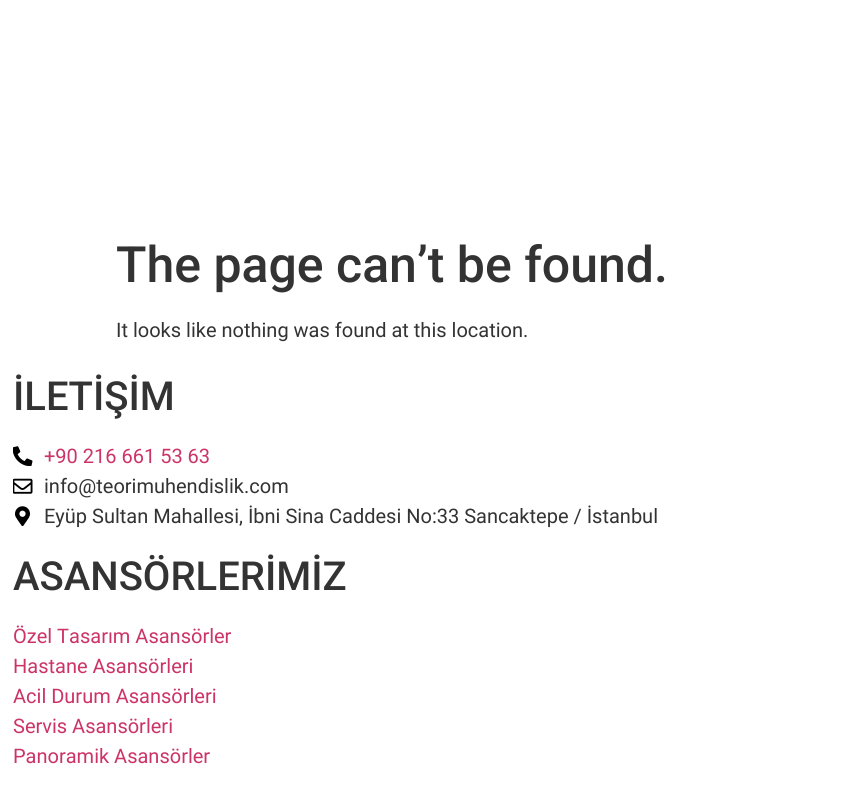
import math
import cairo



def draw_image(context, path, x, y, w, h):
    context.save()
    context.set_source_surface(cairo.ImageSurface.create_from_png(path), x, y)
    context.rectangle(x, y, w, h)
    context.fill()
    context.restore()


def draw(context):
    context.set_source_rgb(1, 1, 1)
    context.paint()
    draw_image(context, "images/1.png", 13, 446, 20, 20)
    draw_image(context, "images/2.png", 13, 478, 20, 16)
    draw_image(context, "images/3.png", 15, 506, 15, 20)
    context.select_font_face("Roboto Medium")
    context.set_font_size(50)
    context.set_source_rgb(51 / 255, 51 / 255, 51 / 255)
    context.move_to(116, 282)
    context.show_text("The page can’t be found.")
    context.select_font_face("Roboto")
    context.set_font_size(20)
    context.move_to(116, 337)
    context.show_text("It looks like nothing was found at this location.")
    context.select_font_face("Roboto Medium")
    context.set_font_size(40)
    context.move_to(13, 410)
    context.show_text("İLETİŞİM")
    context.select_font_face("Roboto")
    context.set_font_size(20)
    context.set_source_rgb(204 / 255, 51 / 255, 102 / 255)
    context.move_to(44, 463)
    context.show_text("+90 216 661 53 63")
    context.set_source_rgb(51 / 255, 51 / 255, 51 / 255)
    context.move_to(44, 493)
    context.show_text("info@teorimuhendislik.com")
    context.move_to(44, 523)
    context.show_text("Eyüp Sultan Mahallesi, İbni Sina Caddesi No:33 Sancaktepe / İstanbul")
    context.select_font_face("Roboto Medium")
    context.set_font_size(40)
    context.move_to(13, 590)
    context.show_text("ASANSÖRLERİMİZ")
    context.select_font_face("Roboto")
    context.set_font_size(20)
    context.set_source_rgb(204 / 255, 51 / 255, 102 / 255)
    context.move_to(13, 643)
    context.show_text("Özel Tasarım Asansörler")
    context.move_to(13, 673)
    context.show_text("Hastane Asansörleri")
    context.move_to(13, 703)
    context.show_text("Acil Durum Asansörleri")
    context.move_to(13, 733)
    context.show_text("Servis Asansörleri")
    context.move_to(13, 763)
    context.show_text("Panoramik Asansörler")


surface = cairo.ImageSurface(cairo.Format.RGB24, 856, 787)
context = cairo.Context(surface)
options = cairo.FontOptions()
options.set_hint_metrics(cairo.HintMetrics.OFF)
options.set_hint_style(cairo.HintStyle.NONE)
context.set_font_options(options)
context.set_miter_limit(4)
draw(context)
surface.write_to_png("out.png")
